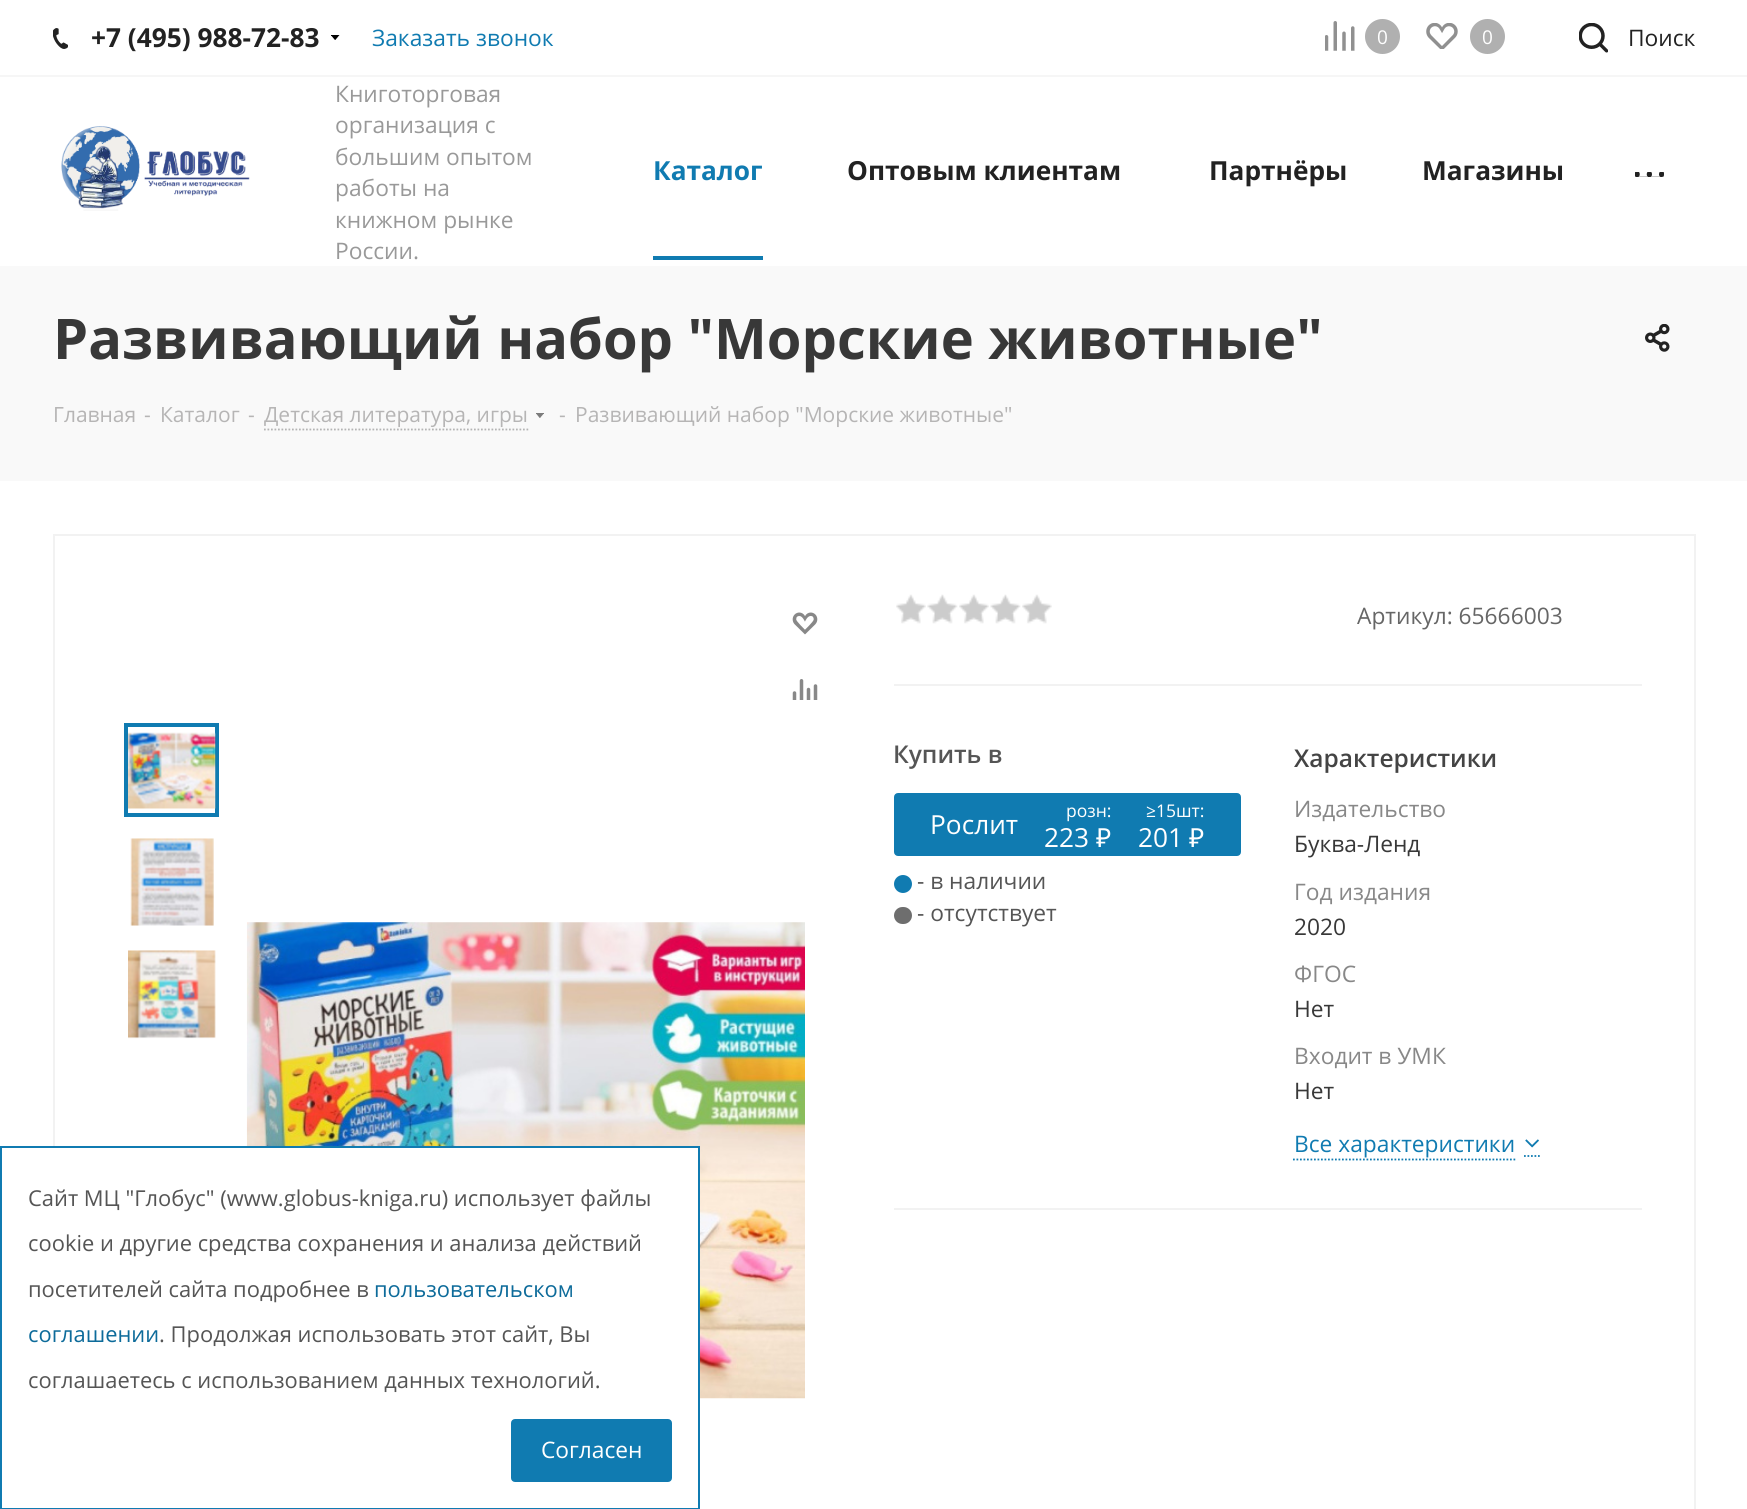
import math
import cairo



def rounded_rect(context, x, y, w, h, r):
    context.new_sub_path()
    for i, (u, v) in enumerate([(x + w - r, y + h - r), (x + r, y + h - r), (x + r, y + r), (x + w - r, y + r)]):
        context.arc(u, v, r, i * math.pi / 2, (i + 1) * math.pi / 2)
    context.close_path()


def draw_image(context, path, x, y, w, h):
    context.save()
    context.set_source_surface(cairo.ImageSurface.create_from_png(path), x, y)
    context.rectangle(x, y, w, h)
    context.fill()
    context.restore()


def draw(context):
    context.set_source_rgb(1, 1, 1)
    context.paint()
    context.set_source_rgb(246 / 255, 246 / 255, 246 / 255)
    context.rectangle(0, 75, 1747, 2)
    context.fill()
    draw_image(context, "images/1.png", 53, 28, 15, 21)
    draw_image(context, "images/2.png", 331, 35, 9, 5)
    draw_image(context, "images/3.png", 1325, 21, 30, 30)
    context.set_source_rgb(176 / 255, 176 / 255, 176 / 255)
    context.arc(1382.5, 36.5, 17.5, 0, 2 * math.pi)
    context.fill()
    draw_image(context, "images/4.png", 1426, 23, 32, 26)
    context.arc(1487.5, 36.5, 17.5, 0, 2 * math.pi)
    context.fill()
    draw_image(context, "images/5.png", 1579, 23, 29, 30)
    draw_image(context, "images/6.png", 61, 126, 189, 85)
    context.set_source_rgb(16 / 255, 123 / 255, 177 / 255)
    context.rectangle(653, 256, 110, 4)
    context.fill()
    context.set_source_rgb(34 / 255, 34 / 255, 34 / 255)
    context.rectangle(1635, 172, 29, 5)
    context.fill()
    draw_image(context, "images/7.png", 1635, 172, 29, 5)
    context.set_source_rgb(249 / 255, 249 / 255, 249 / 255)
    context.rectangle(0, 266, 1747, 215)
    context.fill()
    draw_image(context, "images/8.png", 1645, 324, 25, 28)
    context.new_path()
    context.move_to(264, 429.5)
    context.line_to(528.5, 429.5)
    context.set_source_rgb(180 / 255, 180 / 255, 180 / 255)
    context.set_line_width(1.8)
    context.set_dash([1.75, 1.75])
    context.stroke()
    draw_image(context, "images/9.png", 536, 413, 8, 5)
    context.rectangle(54, 535, 1641, 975)
    context.set_source_rgb(242 / 255, 242 / 255, 242 / 255)
    context.set_line_width(2)
    context.set_dash([])
    context.stroke()
    draw_image(context, "images/10.png", 792, 612, 26, 23)
    draw_image(context, "images/11.png", 792, 679, 26, 21)
    context.rectangle(126, 725, 91, 90)
    context.set_source_rgb(16 / 255, 123 / 255, 177 / 255)
    context.set_line_width(4)
    context.stroke()
    draw_image(context, "images/12.png", 128, 732, 88, 77)
    draw_image(context, "images/13.png", 130, 838, 84, 88)
    draw_image(context, "images/14.png", 128, 950, 88, 89)
    draw_image(context, "images/15.png", 246, 922, 559, 477)
    context.set_source_rgb(242 / 255, 242 / 255, 242 / 255)
    context.rectangle(894, 684, 748, 2)
    context.fill()
    draw_image(context, "images/16.png", 896, 594, 30, 30)
    draw_image(context, "images/17.png", 927, 594, 31, 30)
    draw_image(context, "images/16.png", 959, 594, 30, 30)
    draw_image(context, "images/18.png", 990, 594, 31, 30)
    draw_image(context, "images/16.png", 1022, 594, 30, 30)
    context.set_source_rgb(16 / 255, 123 / 255, 177 / 255)
    rounded_rect(context, 895, 794, 345, 61, 3)
    context.fill_preserve()
    context.set_line_width(2)
    context.stroke()
    context.arc(903, 884, 9, 0, 2 * math.pi)
    context.fill()
    context.set_source_rgb(110 / 255, 110 / 255, 110 / 255)
    rounded_rect(context, 894, 907, 18, 17, 8.5)
    context.fill()
    context.new_path()
    context.move_to(1524, 1156)
    context.line_to(1540, 1156)
    context.set_source_rgb(16 / 255, 123 / 255, 177 / 255)
    context.set_line_width(1.8)
    context.set_dash([1.75, 1.75])
    context.stroke()
    context.new_path()
    context.move_to(1293, 1159.5)
    context.line_to(1515.5, 1159.5)
    context.stroke()
    draw_image(context, "images/19.png", 1525, 1139, 14, 9)
    context.set_source_rgb(242 / 255, 242 / 255, 242 / 255)
    context.rectangle(894, 1208, 748, 2)
    context.fill()
    context.set_source_rgb(1, 1, 1)
    context.rectangle(53, 1148, 645, 360)
    context.fill()
    context.rectangle(1, 1147, 698, 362)
    context.set_source_rgb(16 / 255, 123 / 255, 177 / 255)
    context.set_line_width(2)
    context.set_dash([])
    context.stroke()
    rounded_rect(context, 512, 1420, 159, 61, 3)
    context.fill_preserve()
    context.stroke()
    context.select_font_face("Open Sans", cairo.FontSlant.NORMAL, cairo.FontWeight.BOLD)
    context.set_font_size(26.25)
    context.set_source_rgb(34 / 255, 34 / 255, 34 / 255)
    context.move_to(91, 47)
    context.show_text("+7 (495) 988-72-83")
    context.select_font_face("Open Sans")
    context.set_font_size(22.75)
    context.set_source_rgb(16 / 255, 123 / 255, 177 / 255)
    context.move_to(372, 46)
    context.show_text("Заказать звонок")
    context.set_font_size(19)
    context.set_source_rgb(1, 1, 1)
    context.move_to(1377, 44)
    context.show_text("0")
    context.move_to(1482, 44)
    context.show_text("0")
    context.set_font_size(22.75)
    context.set_source_rgb(34 / 255, 34 / 255, 34 / 255)
    context.move_to(1628, 46)
    context.show_text("Поиск")
    context.set_source_rgb(153 / 255, 153 / 255, 153 / 255)
    context.move_to(335, 102)
    context.show_text("Книготорговая")
    context.move_to(335, 133)
    context.show_text("организация с")
    context.move_to(335, 165)
    context.show_text("большим опытом")
    context.move_to(335, 196)
    context.show_text("работы на")
    context.move_to(335, 228)
    context.show_text("книжном рынке")
    context.move_to(335, 259)
    context.show_text("России.")
    context.select_font_face("Open Sans", cairo.FontSlant.NORMAL, cairo.FontWeight.BOLD)
    context.set_font_size(26.25)
    context.set_source_rgb(16 / 255, 123 / 255, 177 / 255)
    context.move_to(653, 180)
    context.show_text("Каталог")
    context.set_source_rgb(34 / 255, 34 / 255, 34 / 255)
    context.move_to(847, 180)
    context.show_text("Оптовым клиентам")
    context.move_to(1209, 180)
    context.show_text("Партнёры")
    context.move_to(1422, 180)
    context.show_text("Магазины")
    context.set_font_size(56)
    context.set_source_rgb(56 / 255, 56 / 255, 56 / 255)
    context.move_to(53, 359)
    context.show_text("Развивающий набор \"Морские животные\"")
    context.select_font_face("Open Sans")
    context.set_font_size(21)
    context.set_source_rgb(182 / 255, 181 / 255, 181 / 255)
    context.move_to(53, 422)
    context.show_text("Главная")
    context.move_to(144, 422)
    context.show_text("-")
    context.move_to(160, 422)
    context.show_text("Каталог")
    context.move_to(248, 422)
    context.show_text("-")
    context.move_to(264, 422)
    context.show_text("Детская литература, игры")
    context.move_to(559, 422)
    context.show_text("-")
    context.move_to(575, 422)
    context.show_text("Развивающий набор \"Морские животные\"")
    context.set_font_size(22.75)
    context.set_source_rgb(102 / 255, 102 / 255, 102 / 255)
    context.move_to(1357, 624)
    context.show_text("Артикул: 65666003")
    context.select_font_face("Open Sans SemiBold")
    context.set_font_size(24.5)
    context.set_source_rgb(85 / 255, 85 / 255, 85 / 255)
    context.move_to(893, 763)
    context.show_text("Купить в")
    context.select_font_face("Open Sans")
    context.set_font_size(26.25)
    context.set_source_rgb(1, 1, 1)
    context.move_to(930, 834)
    context.show_text("Рослит")
    context.set_font_size(17.5)
    context.move_to(1066, 817)
    context.show_text("розн:")
    context.move_to(1146, 817)
    context.show_text("≥15шт:")
    context.set_font_size(26.25)
    context.move_to(1044, 847)
    context.show_text("223")
    context.select_font_face("Noto Sans")
    context.move_to(1096, 847)
    context.show_text("₽")
    context.select_font_face("Open Sans")
    context.move_to(1138, 847)
    context.show_text("201")
    context.select_font_face("Noto Sans")
    context.move_to(1189, 847)
    context.show_text("₽")
    context.select_font_face("Open Sans")
    context.set_font_size(22.75)
    context.set_source_rgb(85 / 255, 85 / 255, 85 / 255)
    context.move_to(917, 889)
    context.show_text("- в наличии")
    context.move_to(917, 921)
    context.show_text("- отсутствует")
    context.select_font_face("Open Sans SemiBold")
    context.set_font_size(24.5)
    context.set_source_rgb(68 / 255, 68 / 255, 68 / 255)
    context.move_to(1294, 767)
    context.show_text("Характеристики")
    context.select_font_face("Open Sans")
    context.set_font_size(22.75)
    context.set_source_rgb(136 / 255, 136 / 255, 136 / 255)
    context.move_to(1294, 817)
    context.show_text("Издательство")
    context.set_source_rgb(56 / 255, 56 / 255, 56 / 255)
    context.move_to(1294, 852)
    context.show_text("Буква-Ленд")
    context.set_source_rgb(136 / 255, 136 / 255, 136 / 255)
    context.move_to(1294, 900)
    context.show_text("Год издания")
    context.set_source_rgb(56 / 255, 56 / 255, 56 / 255)
    context.move_to(1294, 935)
    context.show_text("2020")
    context.set_source_rgb(136 / 255, 136 / 255, 136 / 255)
    context.move_to(1294, 982)
    context.show_text("ФГОС")
    context.set_source_rgb(56 / 255, 56 / 255, 56 / 255)
    context.move_to(1294, 1017)
    context.show_text("Нет")
    context.set_source_rgb(136 / 255, 136 / 255, 136 / 255)
    context.move_to(1294, 1064)
    context.show_text("Входит в УМК")
    context.set_source_rgb(56 / 255, 56 / 255, 56 / 255)
    context.move_to(1294, 1099)
    context.show_text("Нет")
    context.set_source_rgb(16 / 255, 123 / 255, 177 / 255)
    context.move_to(1294, 1152)
    context.show_text("Все характеристики")
    context.set_font_size(21.9)
    context.set_source_rgb(85 / 255, 85 / 255, 85 / 255)
    context.move_to(28, 1206)
    context.show_text("Cайт МЦ \"Глобус\" (www.globus-kniga.ru) использует файлы")
    context.move_to(28, 1251)
    context.show_text("cookie и другие средства сохранения и анализа действий")
    context.move_to(28, 1297)
    context.show_text("посетителей сайта подробнее в")
    context.set_source_rgb(13 / 255, 107 / 255, 154 / 255)
    context.move_to(374, 1297)
    context.show_text("пользовательском")
    context.move_to(28, 1342)
    context.show_text("соглашении")
    context.set_source_rgb(85 / 255, 85 / 255, 85 / 255)
    context.move_to(159, 1342)
    context.show_text(". Продолжая использовать этот сайт, Вы")
    context.move_to(28, 1388)
    context.show_text("соглашаетесь с использованием данных технологий.")
    context.set_font_size(22.75)
    context.set_source_rgb(1, 1, 1)
    context.move_to(541, 1458)
    context.show_text("Согласен")


surface = cairo.ImageSurface(cairo.Format.RGB24, 1747, 1509)
context = cairo.Context(surface)
options = cairo.FontOptions()
options.set_hint_metrics(cairo.HintMetrics.OFF)
options.set_hint_style(cairo.HintStyle.NONE)
context.set_font_options(options)
context.set_miter_limit(4)
draw(context)
surface.write_to_png("out.png")
